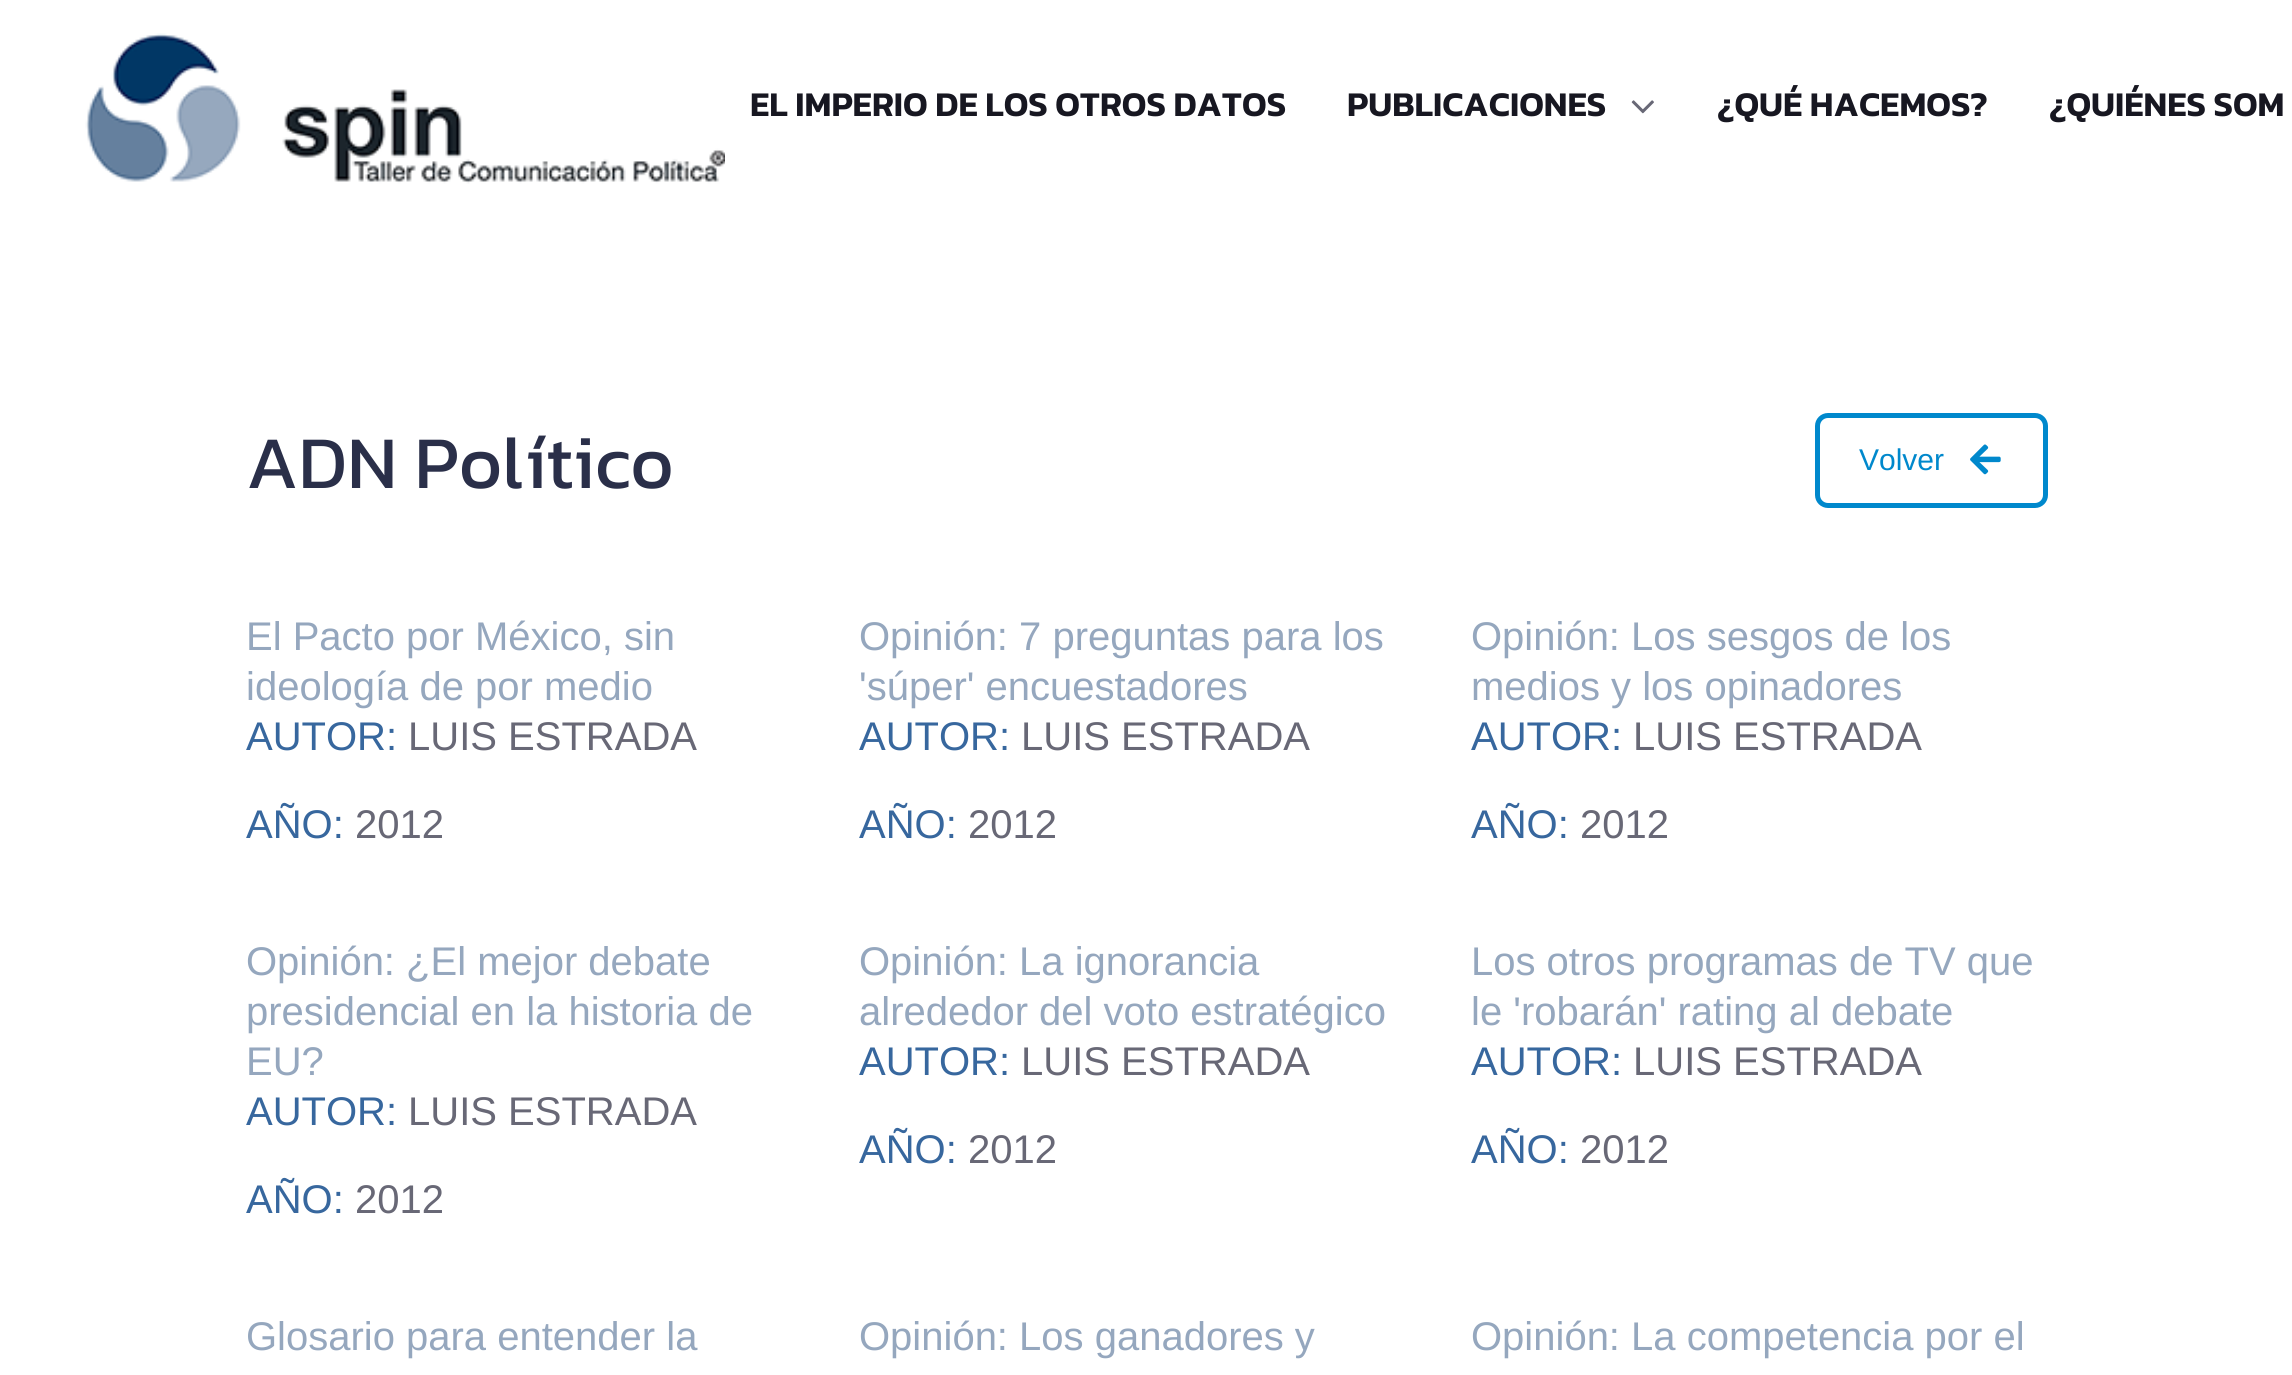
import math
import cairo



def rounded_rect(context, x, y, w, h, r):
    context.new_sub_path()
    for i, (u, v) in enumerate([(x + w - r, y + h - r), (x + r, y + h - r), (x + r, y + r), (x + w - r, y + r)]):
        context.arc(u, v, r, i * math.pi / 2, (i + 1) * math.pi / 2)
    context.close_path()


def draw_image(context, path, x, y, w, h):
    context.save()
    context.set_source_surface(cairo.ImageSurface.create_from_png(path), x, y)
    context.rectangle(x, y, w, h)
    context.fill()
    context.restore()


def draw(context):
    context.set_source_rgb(1, 1, 1)
    context.paint()
    draw_image(context, "images/1.png", 85, 33, 640, 151)
    draw_image(context, "images/2.png", 1631, 100, 23, 14)
    rounded_rect(context, 1817.5, 415.5, 228, 90, 10.5)
    context.set_source_rgb(0, 136 / 255, 204 / 255)
    context.set_line_width(5)
    context.stroke()
    draw_image(context, "images/3.png", 1970, 444, 31, 31)
    context.select_font_face("Kanit SemiBold")
    context.set_font_size(35)
    context.set_source_rgb(23 / 255, 23 / 255, 33 / 255)
    context.move_to(750, 116)
    context.show_text("EL IMPERIO DE LOS OTROS DATOS")
    context.move_to(1347, 116)
    context.show_text("PUBLICACIONES")
    context.move_to(1717, 116)
    context.show_text("¿QUÉ HACEMOS?")
    context.move_to(2049, 116)
    context.show_text("¿QUIÉNES SOM")
    context.select_font_face("Kanit")
    context.set_font_size(75)
    context.set_source_rgb(42 / 255, 47 / 255, 73 / 255)
    context.move_to(246, 488)
    context.show_text("ADN Político")
    context.select_font_face("Arimo")
    context.set_font_size(30)
    context.set_source_rgb(0, 136 / 255, 204 / 255)
    context.move_to(1859, 470)
    context.show_text("Volver")
    context.set_font_size(40)
    context.set_source_rgb(149 / 255, 167 / 255, 190 / 255)
    context.move_to(246, 650)
    context.show_text("El Pacto por México, sin")
    context.move_to(246, 700)
    context.show_text("ideología de por medio")
    context.set_source_rgb(55 / 255, 103 / 255, 158 / 255)
    context.move_to(246, 750)
    context.show_text("AUTOR:")
    context.set_source_rgb(104 / 255, 104 / 255, 118 / 255)
    context.move_to(408, 750)
    context.show_text("LUIS ESTRADA")
    context.set_source_rgb(55 / 255, 103 / 255, 158 / 255)
    context.move_to(246, 838)
    context.show_text("AÑO:")
    context.set_source_rgb(104 / 255, 104 / 255, 118 / 255)
    context.move_to(355, 838)
    context.show_text("2012")
    context.set_source_rgb(149 / 255, 167 / 255, 190 / 255)
    context.move_to(859, 650)
    context.show_text("Opinión: 7 preguntas para los")
    context.move_to(859, 700)
    context.show_text("'súper' encuestadores")
    context.set_source_rgb(55 / 255, 103 / 255, 158 / 255)
    context.move_to(859, 750)
    context.show_text("AUTOR:")
    context.set_source_rgb(104 / 255, 104 / 255, 118 / 255)
    context.move_to(1021, 750)
    context.show_text("LUIS ESTRADA")
    context.set_source_rgb(55 / 255, 103 / 255, 158 / 255)
    context.move_to(859, 838)
    context.show_text("AÑO:")
    context.set_source_rgb(104 / 255, 104 / 255, 118 / 255)
    context.move_to(968, 838)
    context.show_text("2012")
    context.set_source_rgb(149 / 255, 167 / 255, 190 / 255)
    context.move_to(1471, 650)
    context.show_text("Opinión: Los sesgos de los")
    context.move_to(1471, 700)
    context.show_text("medios y los opinadores")
    context.set_source_rgb(55 / 255, 103 / 255, 158 / 255)
    context.move_to(1471, 750)
    context.show_text("AUTOR:")
    context.set_source_rgb(104 / 255, 104 / 255, 118 / 255)
    context.move_to(1633, 750)
    context.show_text("LUIS ESTRADA")
    context.set_source_rgb(55 / 255, 103 / 255, 158 / 255)
    context.move_to(1471, 838)
    context.show_text("AÑO:")
    context.set_source_rgb(104 / 255, 104 / 255, 118 / 255)
    context.move_to(1580, 838)
    context.show_text("2012")
    context.set_source_rgb(149 / 255, 167 / 255, 190 / 255)
    context.move_to(246, 975)
    context.show_text("Opinión: ¿El mejor debate")
    context.move_to(246, 1025)
    context.show_text("presidencial en la historia de")
    context.move_to(246, 1075)
    context.show_text("EU?")
    context.set_source_rgb(55 / 255, 103 / 255, 158 / 255)
    context.move_to(246, 1125)
    context.show_text("AUTOR:")
    context.set_source_rgb(104 / 255, 104 / 255, 118 / 255)
    context.move_to(408, 1125)
    context.show_text("LUIS ESTRADA")
    context.set_source_rgb(55 / 255, 103 / 255, 158 / 255)
    context.move_to(246, 1213)
    context.show_text("AÑO:")
    context.set_source_rgb(104 / 255, 104 / 255, 118 / 255)
    context.move_to(355, 1213)
    context.show_text("2012")
    context.set_source_rgb(149 / 255, 167 / 255, 190 / 255)
    context.move_to(859, 975)
    context.show_text("Opinión: La ignorancia")
    context.move_to(859, 1025)
    context.show_text("alrededor del voto estratégico")
    context.set_source_rgb(55 / 255, 103 / 255, 158 / 255)
    context.move_to(859, 1075)
    context.show_text("AUTOR:")
    context.set_source_rgb(104 / 255, 104 / 255, 118 / 255)
    context.move_to(1021, 1075)
    context.show_text("LUIS ESTRADA")
    context.set_source_rgb(55 / 255, 103 / 255, 158 / 255)
    context.move_to(859, 1163)
    context.show_text("AÑO:")
    context.set_source_rgb(104 / 255, 104 / 255, 118 / 255)
    context.move_to(968, 1163)
    context.show_text("2012")
    context.set_source_rgb(149 / 255, 167 / 255, 190 / 255)
    context.move_to(1471, 975)
    context.show_text("Los otros programas de TV que")
    context.move_to(1471, 1025)
    context.show_text("le 'robarán' rating al debate")
    context.set_source_rgb(55 / 255, 103 / 255, 158 / 255)
    context.move_to(1471, 1075)
    context.show_text("AUTOR:")
    context.set_source_rgb(104 / 255, 104 / 255, 118 / 255)
    context.move_to(1633, 1075)
    context.show_text("LUIS ESTRADA")
    context.set_source_rgb(55 / 255, 103 / 255, 158 / 255)
    context.move_to(1471, 1163)
    context.show_text("AÑO:")
    context.set_source_rgb(104 / 255, 104 / 255, 118 / 255)
    context.move_to(1580, 1163)
    context.show_text("2012")
    context.set_source_rgb(149 / 255, 167 / 255, 190 / 255)
    context.move_to(246, 1350)
    context.show_text("Glosario para entender la")
    context.move_to(859, 1350)
    context.show_text("Opinión: Los ganadores y")
    context.move_to(1471, 1350)
    context.show_text("Opinión: La competencia por el")


surface = cairo.ImageSurface(cairo.Format.RGB24, 2292, 1375)
context = cairo.Context(surface)
options = cairo.FontOptions()
options.set_hint_metrics(cairo.HintMetrics.OFF)
options.set_hint_style(cairo.HintStyle.NONE)
context.set_font_options(options)
context.set_miter_limit(4)
draw(context)
surface.write_to_png("out.png")
